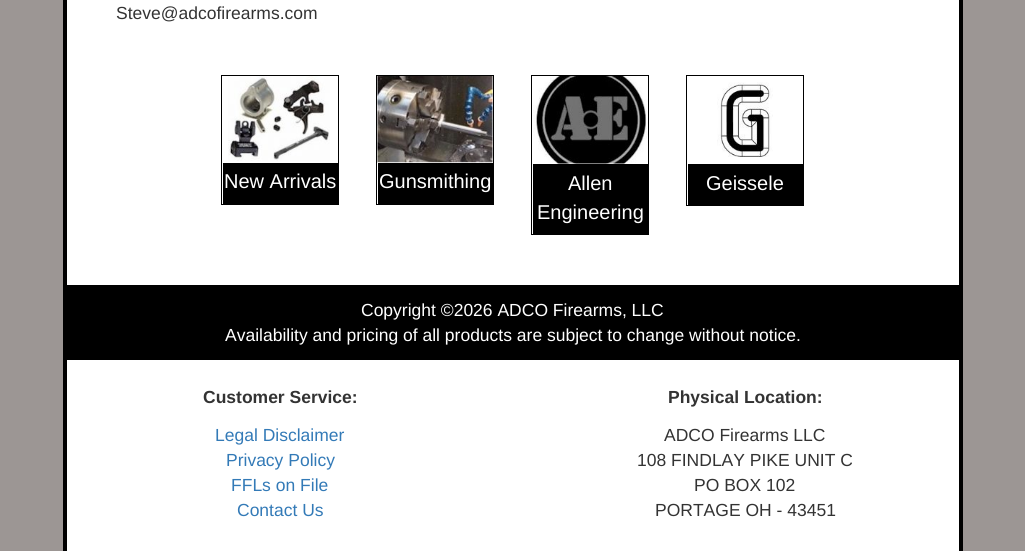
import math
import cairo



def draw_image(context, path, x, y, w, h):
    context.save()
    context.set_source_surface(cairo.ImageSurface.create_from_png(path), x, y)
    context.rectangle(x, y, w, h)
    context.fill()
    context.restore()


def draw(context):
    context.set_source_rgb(156 / 255, 150 / 255, 148 / 255)
    context.paint()
    context.set_source_rgb(1, 1, 1)
    context.rectangle(65, -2, 896, 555)
    context.fill_preserve()
    context.set_source_rgb(0, 0, 0)
    context.set_line_width(4)
    context.stroke()
    context.rectangle(221.5, 75.5, 117, 129)
    context.set_line_width(1)
    context.stroke()
    draw_image(context, "images/1.png", 228, 76, 102, 85)
    context.rectangle(223, 163, 115, 41)
    context.fill()
    context.rectangle(376.5, 75.5, 117, 129)
    context.stroke()
    draw_image(context, "images/2.png", 377, 76, 116, 87)
    context.rectangle(378, 163, 115, 41)
    context.fill()
    context.rectangle(531.5, 75.5, 117, 159)
    context.stroke()
    draw_image(context, "images/3.png", 533, 76, 115, 88)
    context.rectangle(533, 164, 115, 70)
    context.fill()
    context.rectangle(686.5, 75.5, 117, 130)
    context.stroke()
    draw_image(context, "images/4.png", 717, 82, 56, 75)
    context.rectangle(688, 164, 115, 41)
    context.fill()
    context.rectangle(67, 285, 892, 75)
    context.fill()
    context.select_font_face("Liberation Sans")
    context.set_font_size(17.5)
    context.set_source_rgb(51 / 255, 51 / 255, 51 / 255)
    context.move_to(116, 19)
    context.show_text("Steve@adcofirearms.com")
    context.set_font_size(20)
    context.set_source_rgb(1, 1, 1)
    context.move_to(224, 188)
    context.show_text("New Arrivals")
    context.move_to(379, 188)
    context.show_text("Gunsmithing")
    context.move_to(568, 190)
    context.show_text("Allen")
    context.move_to(537, 219)
    context.show_text("Engineering")
    context.move_to(706, 190)
    context.show_text("Geissele")
    context.set_font_size(17.5)
    context.move_to(361, 316)
    context.show_text("Copyright ©2026 ADCO Firearms, LLC")
    context.move_to(225, 341)
    context.show_text("Availability and pricing of all products are subject to change without notice.")
    context.select_font_face("Liberation Sans", cairo.FontSlant.NORMAL, cairo.FontWeight.BOLD)
    context.set_source_rgb(51 / 255, 51 / 255, 51 / 255)
    context.move_to(203, 403)
    context.show_text("Customer Service:")
    context.select_font_face("Liberation Sans")
    context.set_source_rgb(51 / 255, 122 / 255, 183 / 255)
    context.move_to(215, 441)
    context.show_text("Legal Disclaimer")
    context.move_to(226, 466)
    context.show_text("Privacy Policy")
    context.move_to(231, 491)
    context.show_text("FFLs on File")
    context.move_to(237, 516)
    context.show_text("Contact Us")
    context.select_font_face("Liberation Sans", cairo.FontSlant.NORMAL, cairo.FontWeight.BOLD)
    context.set_source_rgb(51 / 255, 51 / 255, 51 / 255)
    context.move_to(668, 403)
    context.show_text("Physical Location:")
    context.select_font_face("Liberation Sans")
    context.move_to(664, 441)
    context.show_text("ADCO Firearms LLC")
    context.move_to(637, 466)
    context.show_text("108 FINDLAY PIKE UNIT C")
    context.move_to(694, 491)
    context.show_text("PO BOX 102")
    context.move_to(655, 516)
    context.show_text("PORTAGE OH - 43451")


surface = cairo.ImageSurface(cairo.Format.RGB24, 1025, 551)
context = cairo.Context(surface)
options = cairo.FontOptions()
options.set_hint_metrics(cairo.HintMetrics.OFF)
options.set_hint_style(cairo.HintStyle.NONE)
context.set_font_options(options)
context.set_miter_limit(4)
draw(context)
surface.write_to_png("out.png")
